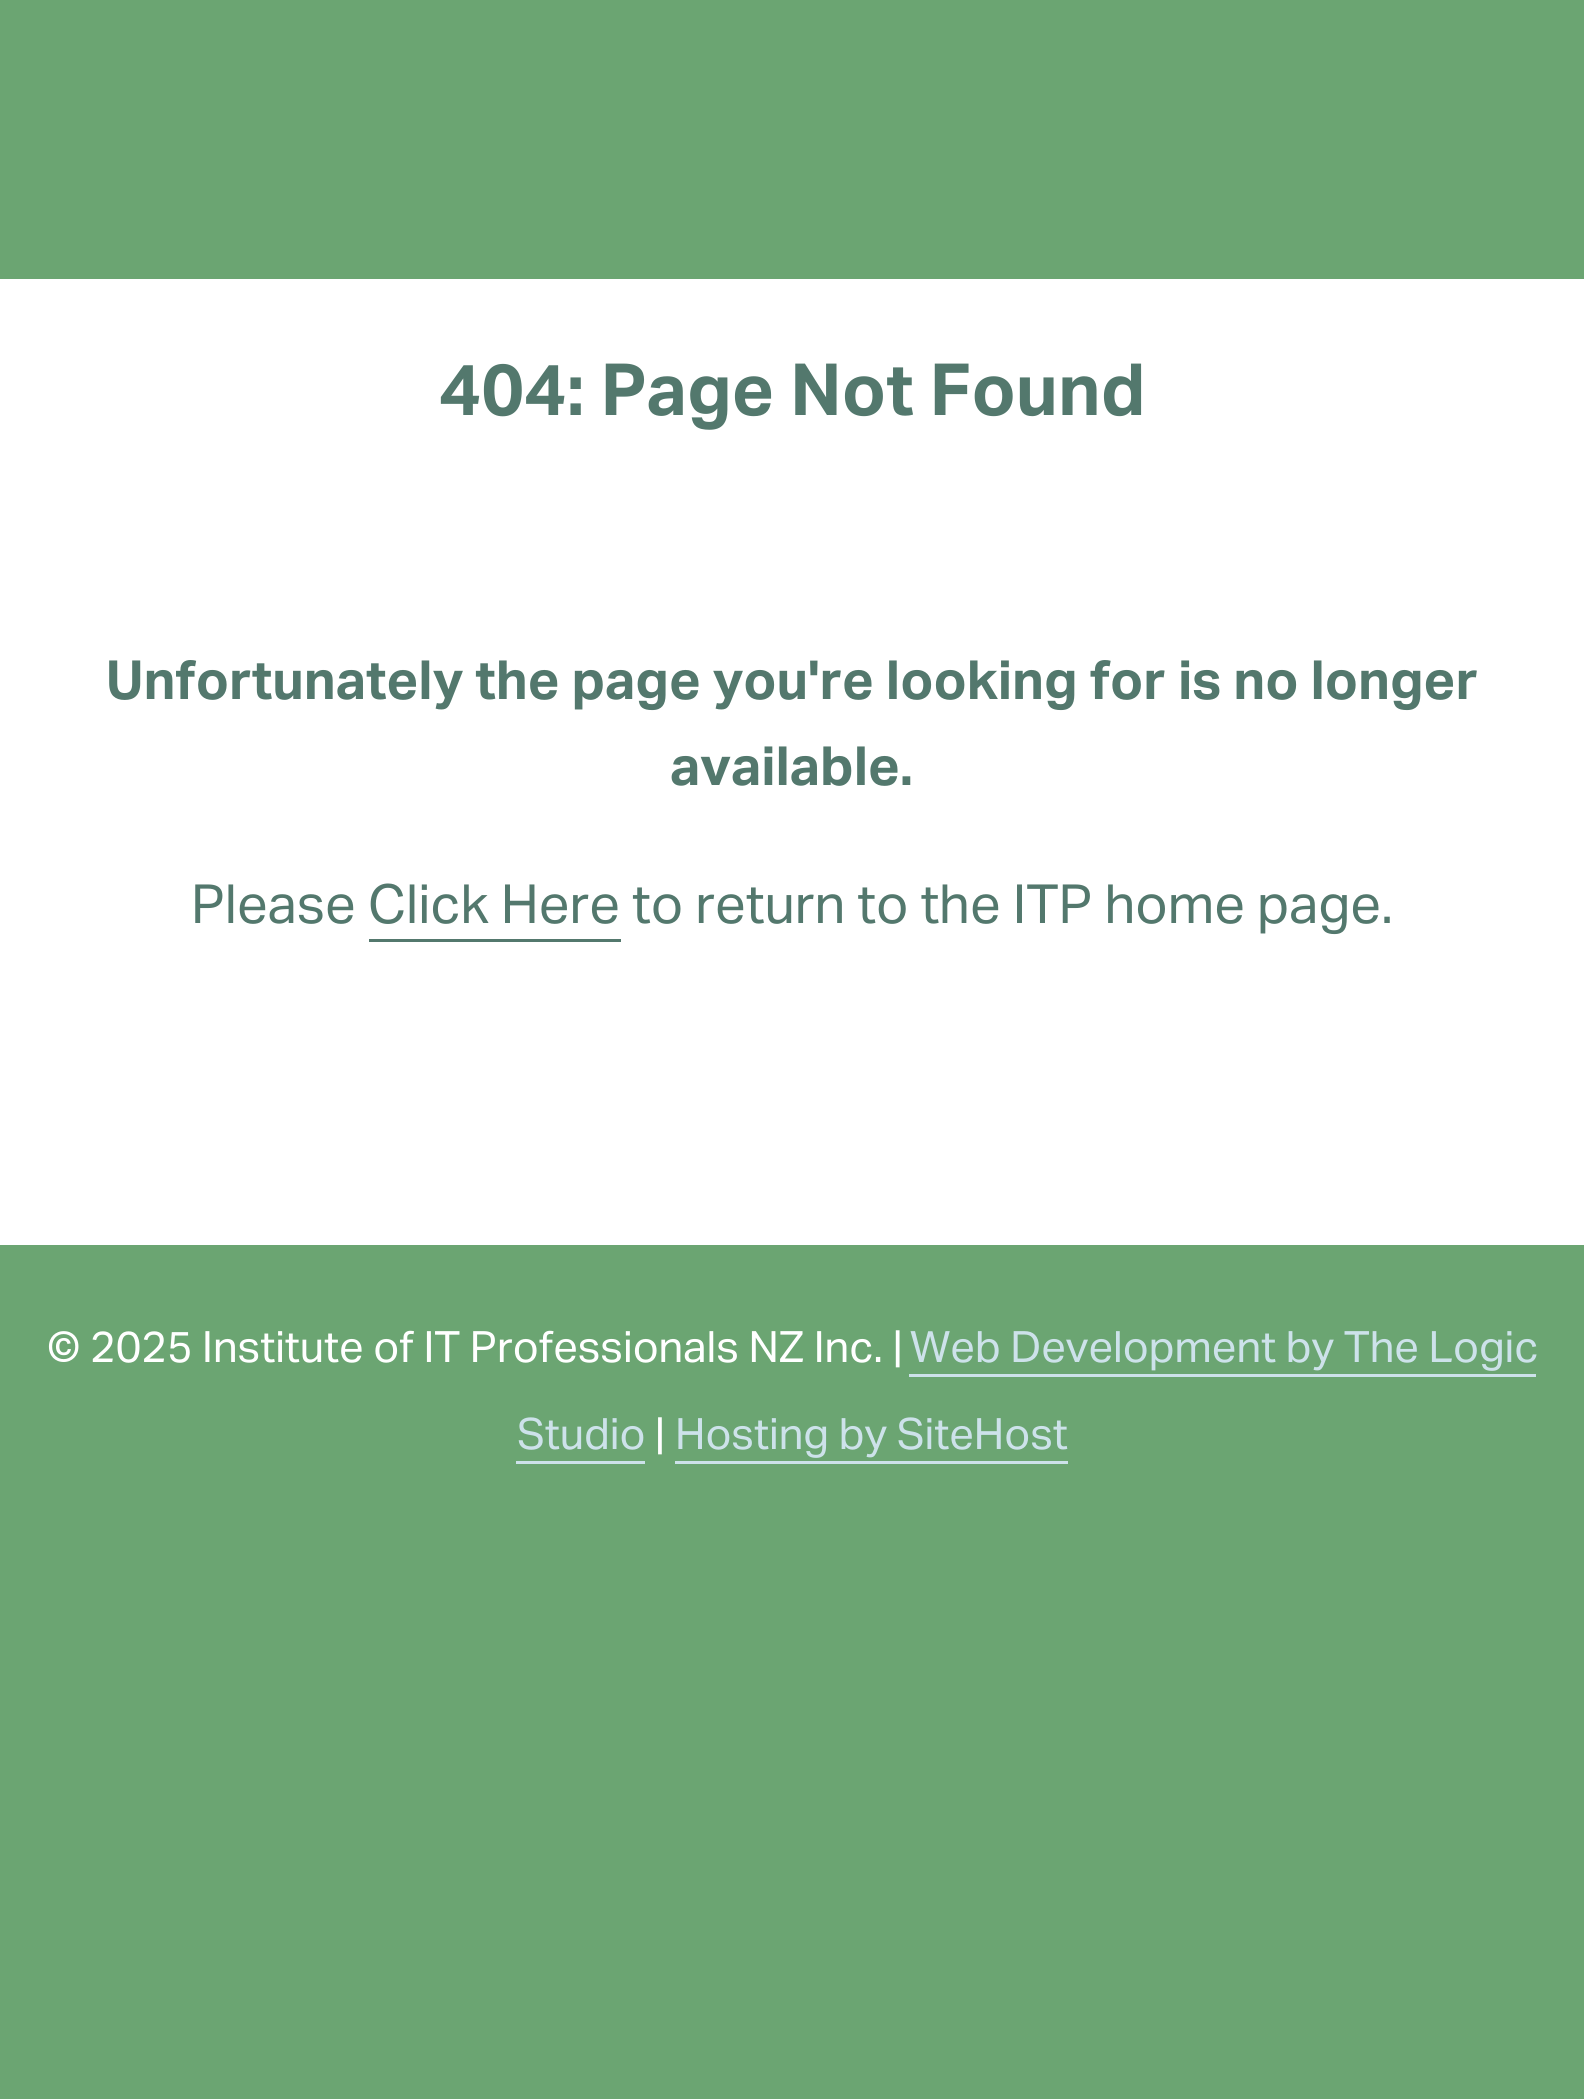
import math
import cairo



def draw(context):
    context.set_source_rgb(107 / 255, 165 / 255, 114 / 255)
    context.paint()
    context.set_source_rgb(1, 1, 1)
    context.rectangle(0, 279, 1584, 966)
    context.fill()
    context.set_source_rgb(83 / 255, 120 / 255, 109 / 255)
    context.rectangle(369, 939, 252, 3)
    context.fill()
    context.set_source_rgb(205 / 255, 226 / 255, 234 / 255)
    context.rectangle(909, 1374, 627, 3)
    context.fill()
    context.rectangle(516, 1461, 129, 3)
    context.fill()
    context.rectangle(675, 1461, 393, 3)
    context.fill()
    context.select_font_face("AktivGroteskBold", cairo.FontSlant.NORMAL, cairo.FontWeight.BOLD)
    context.set_font_size(72)
    context.set_source_rgb(83 / 255, 120 / 255, 109 / 255)
    context.move_to(439, 415)
    context.show_text("404: Page Not Found")
    context.set_font_size(54)
    context.move_to(106, 699)
    context.show_text("Unfortunately the page you're looking for is no longer")
    context.move_to(670, 785)
    context.show_text("available.")
    context.select_font_face("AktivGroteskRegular")
    context.move_to(191, 923)
    context.show_text("Please Click Here to return to the ITP home page.")
    context.set_font_size(43.25)
    context.set_source_rgb(1, 1, 1)
    context.move_to(47, 1362)
    context.show_text("© 2025 Institute of IT Professionals NZ Inc. |")
    context.set_source_rgb(205 / 255, 226 / 255, 234 / 255)
    context.move_to(910, 1362)
    context.show_text("Web Development by The Logic")
    context.move_to(517, 1449)
    context.show_text("Studio")
    context.set_source_rgb(1, 1, 1)
    context.move_to(655, 1449)
    context.show_text("|")
    context.set_source_rgb(205 / 255, 226 / 255, 234 / 255)
    context.move_to(675, 1449)
    context.show_text("Hosting by SiteHost")


surface = cairo.ImageSurface(cairo.Format.RGB24, 1584, 2099)
context = cairo.Context(surface)
options = cairo.FontOptions()
options.set_hint_metrics(cairo.HintMetrics.OFF)
options.set_hint_style(cairo.HintStyle.NONE)
context.set_font_options(options)
context.set_miter_limit(4)
draw(context)
surface.write_to_png("out.png")
